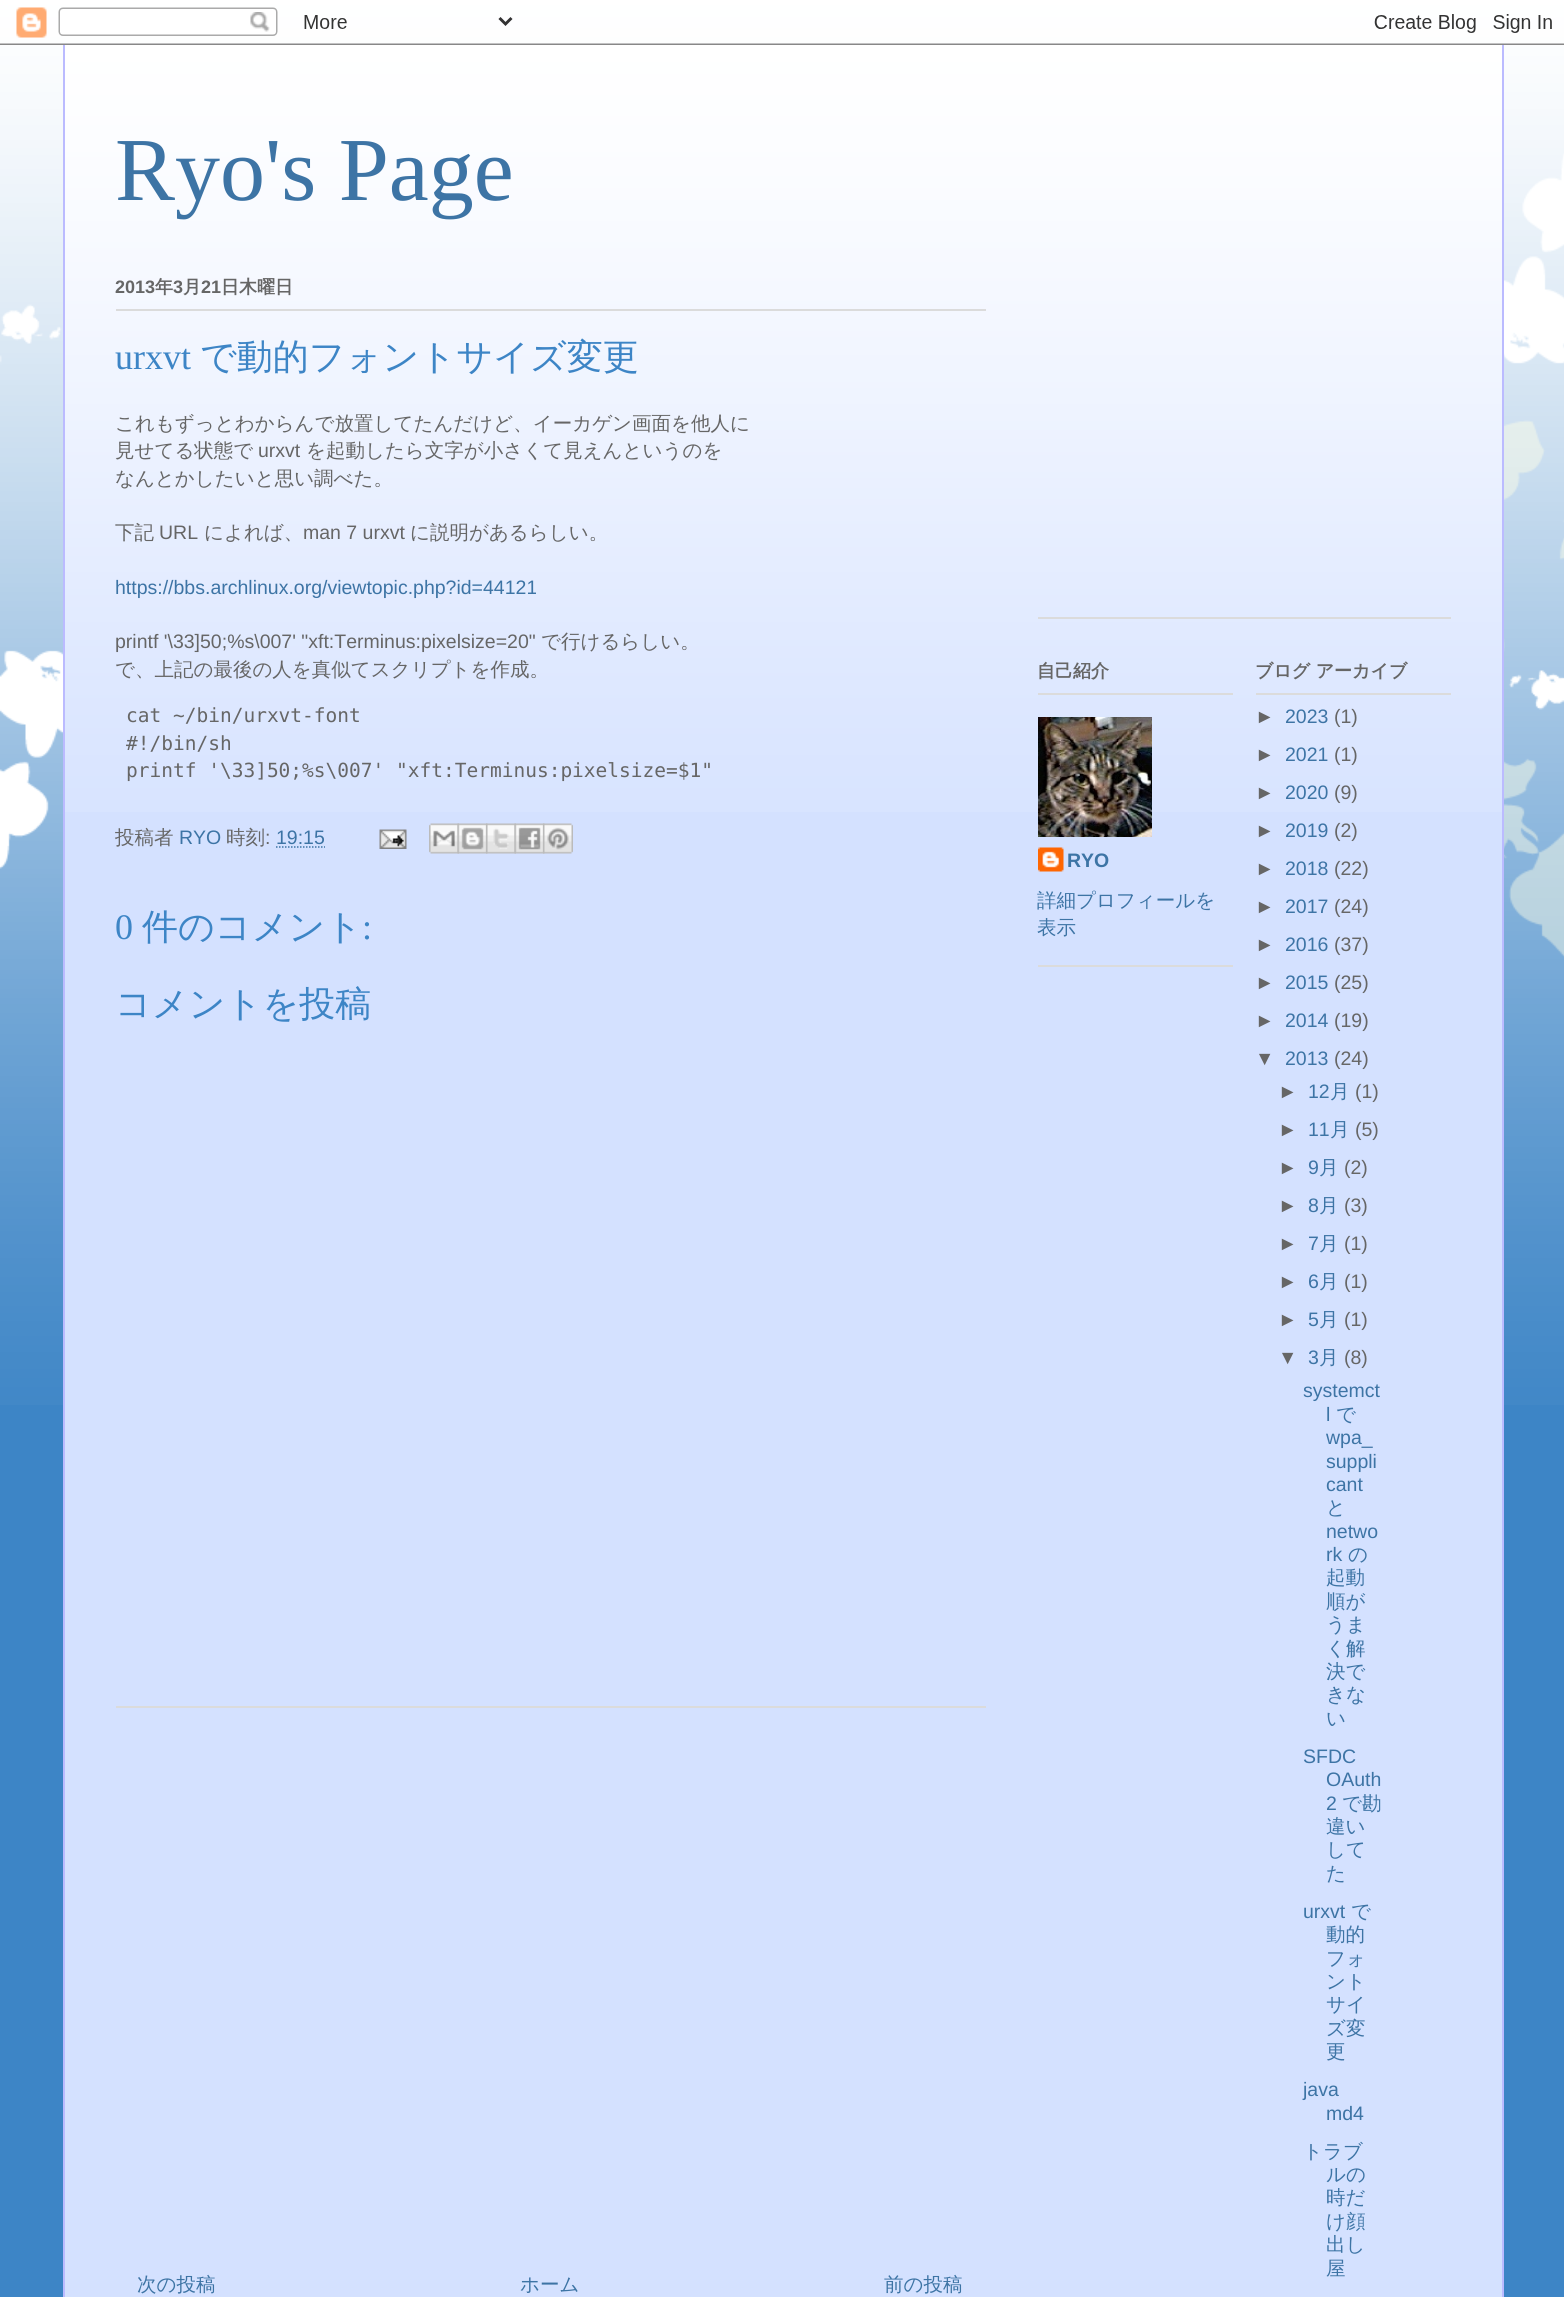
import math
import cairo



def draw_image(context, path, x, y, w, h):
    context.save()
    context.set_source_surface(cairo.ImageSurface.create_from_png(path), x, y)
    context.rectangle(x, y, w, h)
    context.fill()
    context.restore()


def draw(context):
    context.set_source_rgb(61 / 255, 133 / 255, 198 / 255)
    context.paint()
    draw_image(context, "images/1.png", 0, 0, 1564, 1405)
    draw_image(context, "images/2.png", 0, 7, 1564, 38)
    context.set_source_rgb(212 / 255, 225 / 255, 1)
    context.rectangle(65, 55, 1437, 2242)
    context.fill()
    draw_image(context, "images/3.png", 65, 45, 1437, 767)
    context.set_source_rgb(187 / 255, 187 / 255, 1)
    context.rectangle(1502, 45, 2, 2252)
    context.fill()
    context.rectangle(63, 45, 2, 2252)
    context.fill()
    context.set_source_rgb(219 / 255, 219 / 255, 219 / 255)
    context.rectangle(116, 309, 870, 2)
    context.fill()
    context.rectangle(116, 1706, 870, 2)
    context.fill()
    context.new_path()
    context.move_to(276, 847)
    context.line_to(325, 847)
    context.set_source_rgb(61 / 255, 116 / 255, 165 / 255)
    context.set_line_width(1.5)
    context.set_dash([1.5, 1.5])
    context.stroke()
    draw_image(context, "images/4.png", 379, 829, 28, 20)
    draw_image(context, "images/5.png", 429, 823, 30, 31)
    draw_image(context, "images/6.png", 457, 823, 31, 31)
    draw_image(context, "images/7.png", 486, 823, 30, 31)
    draw_image(context, "images/8.png", 514, 823, 31, 31)
    draw_image(context, "images/9.png", 543, 823, 30, 31)
    context.set_source_rgb(219 / 255, 219 / 255, 219 / 255)
    context.rectangle(1038, 617, 413, 2)
    context.fill()
    context.rectangle(1038, 965, 195, 2)
    context.fill()
    context.rectangle(1038, 693, 195, 2)
    context.fill()
    draw_image(context, "images/10.png", 1038, 717, 114, 120)
    draw_image(context, "images/11.png", 1038, 847, 26, 25)
    context.rectangle(1256, 693, 195, 2)
    context.fill()
    context.select_font_face("Liberation Serif")
    context.set_font_size(90)
    context.set_source_rgb(61 / 255, 116 / 255, 165 / 255)
    context.move_to(115, 200)
    context.show_text("Ryo's Page")
    context.select_font_face("Liberation Sans", cairo.FontSlant.NORMAL, cairo.FontWeight.BOLD)
    context.set_font_size(18)
    context.set_source_rgb(102 / 255, 102 / 255, 102 / 255)
    context.move_to(115, 293)
    context.show_text("2013")
    context.select_font_face("WenQuanYi Zen Hei", cairo.FontSlant.NORMAL, cairo.FontWeight.BOLD)
    context.move_to(155, 293)
    context.show_text("年")
    context.select_font_face("Liberation Sans", cairo.FontSlant.NORMAL, cairo.FontWeight.BOLD)
    context.move_to(173, 293)
    context.show_text("3")
    context.select_font_face("WenQuanYi Zen Hei", cairo.FontSlant.NORMAL, cairo.FontWeight.BOLD)
    context.move_to(183, 293)
    context.show_text("月")
    context.select_font_face("Liberation Sans", cairo.FontSlant.NORMAL, cairo.FontWeight.BOLD)
    context.move_to(201, 293)
    context.show_text("21")
    context.select_font_face("WenQuanYi Zen Hei", cairo.FontSlant.NORMAL, cairo.FontWeight.BOLD)
    context.move_to(221, 293)
    context.show_text("日木曜日")
    context.select_font_face("Liberation Serif")
    context.set_font_size(36)
    context.set_source_rgb(61 / 255, 133 / 255, 198 / 255)
    context.move_to(115, 369)
    context.show_text("urxvt")
    context.select_font_face("WenQuanYi Zen Hei Medium")
    context.move_to(200, 369)
    context.show_text("で動的フォントサイズ変更")
    context.set_font_size(19.5)
    context.set_source_rgb(102 / 255, 102 / 255, 102 / 255)
    context.move_to(115, 430)
    context.show_text("これもずっとわからんで放置してたんだけど、イーカゲン画面を他人に")
    context.move_to(115, 457)
    context.show_text("見せてる状態で")
    context.select_font_face("Liberation Sans")
    context.move_to(258, 457)
    context.show_text("urxvt")
    context.select_font_face("WenQuanYi Zen Hei Medium")
    context.move_to(306, 457)
    context.show_text("を起動したら文字が小さくて見えんというのを")
    context.move_to(115, 485)
    context.show_text("なんとかしたいと思い調べた。")
    context.move_to(115, 539)
    context.show_text("下記")
    context.select_font_face("Liberation Sans")
    context.move_to(159, 539)
    context.show_text("URL")
    context.select_font_face("WenQuanYi Zen Hei Medium")
    context.move_to(204, 539)
    context.show_text("によれば、")
    context.select_font_face("Liberation Sans")
    context.move_to(303, 539)
    context.show_text("man 7 urxvt")
    context.select_font_face("WenQuanYi Zen Hei Medium")
    context.move_to(410, 539)
    context.show_text("に説明があるらしい。")
    context.select_font_face("Liberation Sans")
    context.set_source_rgb(61 / 255, 116 / 255, 165 / 255)
    context.move_to(115, 594)
    context.show_text("https://bbs.archlinux.org/viewtopic.php?id=44121")
    context.set_source_rgb(102 / 255, 102 / 255, 102 / 255)
    context.move_to(115, 648)
    context.show_text("printf '\\33]50;%s\\007' \"xft:Terminus:pixelsize=20\"")
    context.select_font_face("WenQuanYi Zen Hei Medium")
    context.move_to(541, 648)
    context.show_text("で行けるらしい。")
    context.move_to(115, 676)
    context.show_text("で、上記の最後の人を真似てスクリプトを作成。")
    context.select_font_face("DejaVu Sans Mono")
    context.move_to(126, 722)
    context.show_text("cat ~/bin/urxvt-font")
    context.move_to(126, 750)
    context.show_text("#!/bin/sh")
    context.move_to(126, 777)
    context.show_text("printf '\\33]50;%s\\007' \"xft:Terminus:pixelsize=$1\"")
    context.select_font_face("WenQuanYi Zen Hei Medium")
    context.move_to(115, 844)
    context.show_text("投稿者")
    context.select_font_face("Liberation Sans")
    context.set_source_rgb(61 / 255, 116 / 255, 165 / 255)
    context.move_to(179, 844)
    context.show_text("RYO")
    context.select_font_face("WenQuanYi Zen Hei Medium")
    context.set_source_rgb(102 / 255, 102 / 255, 102 / 255)
    context.move_to(226, 844)
    context.show_text("時刻")
    context.select_font_face("Liberation Sans")
    context.move_to(265, 844)
    context.show_text(":")
    context.set_source_rgb(61 / 255, 116 / 255, 165 / 255)
    context.move_to(276, 844)
    context.show_text("19:15")
    context.select_font_face("Liberation Serif")
    context.set_font_size(36)
    context.set_source_rgb(61 / 255, 133 / 255, 198 / 255)
    context.move_to(115, 939)
    context.show_text("0")
    context.select_font_face("WenQuanYi Zen Hei Medium")
    context.move_to(142, 939)
    context.show_text("件のコメント")
    context.select_font_face("Liberation Serif")
    context.move_to(362, 939)
    context.show_text(":")
    context.select_font_face("WenQuanYi Zen Hei Medium")
    context.move_to(115, 1016)
    context.show_text("コメントを投稿")
    context.set_font_size(19.5)
    context.set_source_rgb(61 / 255, 116 / 255, 165 / 255)
    context.move_to(137, 2291)
    context.show_text("次の投稿")
    context.move_to(520, 2291)
    context.show_text("ホーム")
    context.move_to(884, 2291)
    context.show_text("前の投稿")
    context.select_font_face("WenQuanYi Zen Hei", cairo.FontSlant.NORMAL, cairo.FontWeight.BOLD)
    context.set_font_size(18)
    context.set_source_rgb(102 / 255, 102 / 255, 102 / 255)
    context.move_to(1037, 677)
    context.show_text("自己紹介")
    context.select_font_face("Liberation Sans", cairo.FontSlant.NORMAL, cairo.FontWeight.BOLD)
    context.set_font_size(19.5)
    context.set_source_rgb(61 / 255, 116 / 255, 165 / 255)
    context.move_to(1067, 867)
    context.show_text("RYO")
    context.select_font_face("WenQuanYi Zen Hei Medium")
    context.move_to(1037, 907)
    context.show_text("詳細プロフィールを")
    context.move_to(1037, 934)
    context.show_text("表示")
    context.select_font_face("WenQuanYi Zen Hei", cairo.FontSlant.NORMAL, cairo.FontWeight.BOLD)
    context.set_font_size(18)
    context.set_source_rgb(102 / 255, 102 / 255, 102 / 255)
    context.move_to(1255, 677)
    context.show_text("ブログ アーカイブ")
    context.select_font_face("Liberation Sans")
    context.set_font_size(19.5)
    context.move_to(1255, 723)
    context.show_text("►")
    context.set_source_rgb(61 / 255, 116 / 255, 165 / 255)
    context.move_to(1285, 723)
    context.show_text("2023")
    context.set_source_rgb(102 / 255, 102 / 255, 102 / 255)
    context.move_to(1334, 723)
    context.show_text("(1)")
    context.move_to(1255, 761)
    context.show_text("►")
    context.set_source_rgb(61 / 255, 116 / 255, 165 / 255)
    context.move_to(1285, 761)
    context.show_text("2021")
    context.set_source_rgb(102 / 255, 102 / 255, 102 / 255)
    context.move_to(1334, 761)
    context.show_text("(1)")
    context.move_to(1255, 799)
    context.show_text("►")
    context.set_source_rgb(61 / 255, 116 / 255, 165 / 255)
    context.move_to(1285, 799)
    context.show_text("2020")
    context.set_source_rgb(102 / 255, 102 / 255, 102 / 255)
    context.move_to(1334, 799)
    context.show_text("(9)")
    context.move_to(1255, 837)
    context.show_text("►")
    context.set_source_rgb(61 / 255, 116 / 255, 165 / 255)
    context.move_to(1285, 837)
    context.show_text("2019")
    context.set_source_rgb(102 / 255, 102 / 255, 102 / 255)
    context.move_to(1334, 837)
    context.show_text("(2)")
    context.move_to(1255, 875)
    context.show_text("►")
    context.set_source_rgb(61 / 255, 116 / 255, 165 / 255)
    context.move_to(1285, 875)
    context.show_text("2018")
    context.set_source_rgb(102 / 255, 102 / 255, 102 / 255)
    context.move_to(1334, 875)
    context.show_text("(22)")
    context.move_to(1255, 913)
    context.show_text("►")
    context.set_source_rgb(61 / 255, 116 / 255, 165 / 255)
    context.move_to(1285, 913)
    context.show_text("2017")
    context.set_source_rgb(102 / 255, 102 / 255, 102 / 255)
    context.move_to(1334, 913)
    context.show_text("(24)")
    context.move_to(1255, 951)
    context.show_text("►")
    context.set_source_rgb(61 / 255, 116 / 255, 165 / 255)
    context.move_to(1285, 951)
    context.show_text("2016")
    context.set_source_rgb(102 / 255, 102 / 255, 102 / 255)
    context.move_to(1334, 951)
    context.show_text("(37)")
    context.move_to(1255, 989)
    context.show_text("►")
    context.set_source_rgb(61 / 255, 116 / 255, 165 / 255)
    context.move_to(1285, 989)
    context.show_text("2015")
    context.set_source_rgb(102 / 255, 102 / 255, 102 / 255)
    context.move_to(1334, 989)
    context.show_text("(25)")
    context.move_to(1255, 1027)
    context.show_text("►")
    context.set_source_rgb(61 / 255, 116 / 255, 165 / 255)
    context.move_to(1285, 1027)
    context.show_text("2014")
    context.set_source_rgb(102 / 255, 102 / 255, 102 / 255)
    context.move_to(1334, 1027)
    context.show_text("(19)")
    context.move_to(1255, 1065)
    context.show_text("▼")
    context.set_source_rgb(61 / 255, 116 / 255, 165 / 255)
    context.move_to(1285, 1065)
    context.show_text("2013")
    context.set_source_rgb(102 / 255, 102 / 255, 102 / 255)
    context.move_to(1334, 1065)
    context.show_text("(24)")
    context.move_to(1278, 1098)
    context.show_text("►")
    context.set_source_rgb(61 / 255, 116 / 255, 165 / 255)
    context.move_to(1308, 1098)
    context.show_text("12")
    context.select_font_face("WenQuanYi Zen Hei Medium")
    context.move_to(1330, 1098)
    context.show_text("月")
    context.select_font_face("Liberation Sans")
    context.set_source_rgb(102 / 255, 102 / 255, 102 / 255)
    context.move_to(1355, 1098)
    context.show_text("(1)")
    context.move_to(1278, 1136)
    context.show_text("►")
    context.set_source_rgb(61 / 255, 116 / 255, 165 / 255)
    context.move_to(1308, 1136)
    context.show_text("11")
    context.select_font_face("WenQuanYi Zen Hei Medium")
    context.move_to(1330, 1136)
    context.show_text("月")
    context.select_font_face("Liberation Sans")
    context.set_source_rgb(102 / 255, 102 / 255, 102 / 255)
    context.move_to(1355, 1136)
    context.show_text("(5)")
    context.move_to(1278, 1174)
    context.show_text("►")
    context.set_source_rgb(61 / 255, 116 / 255, 165 / 255)
    context.move_to(1308, 1174)
    context.show_text("9")
    context.select_font_face("WenQuanYi Zen Hei Medium")
    context.move_to(1319, 1174)
    context.show_text("月")
    context.select_font_face("Liberation Sans")
    context.set_source_rgb(102 / 255, 102 / 255, 102 / 255)
    context.move_to(1344, 1174)
    context.show_text("(2)")
    context.move_to(1278, 1212)
    context.show_text("►")
    context.set_source_rgb(61 / 255, 116 / 255, 165 / 255)
    context.move_to(1308, 1212)
    context.show_text("8")
    context.select_font_face("WenQuanYi Zen Hei Medium")
    context.move_to(1319, 1212)
    context.show_text("月")
    context.select_font_face("Liberation Sans")
    context.set_source_rgb(102 / 255, 102 / 255, 102 / 255)
    context.move_to(1344, 1212)
    context.show_text("(3)")
    context.move_to(1278, 1250)
    context.show_text("►")
    context.set_source_rgb(61 / 255, 116 / 255, 165 / 255)
    context.move_to(1308, 1250)
    context.show_text("7")
    context.select_font_face("WenQuanYi Zen Hei Medium")
    context.move_to(1319, 1250)
    context.show_text("月")
    context.select_font_face("Liberation Sans")
    context.set_source_rgb(102 / 255, 102 / 255, 102 / 255)
    context.move_to(1344, 1250)
    context.show_text("(1)")
    context.move_to(1278, 1288)
    context.show_text("►")
    context.set_source_rgb(61 / 255, 116 / 255, 165 / 255)
    context.move_to(1308, 1288)
    context.show_text("6")
    context.select_font_face("WenQuanYi Zen Hei Medium")
    context.move_to(1319, 1288)
    context.show_text("月")
    context.select_font_face("Liberation Sans")
    context.set_source_rgb(102 / 255, 102 / 255, 102 / 255)
    context.move_to(1344, 1288)
    context.show_text("(1)")
    context.move_to(1278, 1326)
    context.show_text("►")
    context.set_source_rgb(61 / 255, 116 / 255, 165 / 255)
    context.move_to(1308, 1326)
    context.show_text("5")
    context.select_font_face("WenQuanYi Zen Hei Medium")
    context.move_to(1319, 1326)
    context.show_text("月")
    context.select_font_face("Liberation Sans")
    context.set_source_rgb(102 / 255, 102 / 255, 102 / 255)
    context.move_to(1344, 1326)
    context.show_text("(1)")
    context.move_to(1278, 1364)
    context.show_text("▼")
    context.set_source_rgb(61 / 255, 116 / 255, 165 / 255)
    context.move_to(1308, 1364)
    context.show_text("3")
    context.select_font_face("WenQuanYi Zen Hei Medium")
    context.move_to(1319, 1364)
    context.show_text("月")
    context.select_font_face("Liberation Sans")
    context.set_source_rgb(102 / 255, 102 / 255, 102 / 255)
    context.move_to(1344, 1364)
    context.show_text("(8)")
    context.set_source_rgb(61 / 255, 116 / 255, 165 / 255)
    context.move_to(1303, 1397)
    context.show_text("systemct")
    context.move_to(1326, 1421)
    context.show_text("l")
    context.select_font_face("WenQuanYi Zen Hei Medium")
    context.move_to(1336, 1421)
    context.show_text("で")
    context.select_font_face("Liberation Sans")
    context.move_to(1326, 1444)
    context.show_text("wpa_")
    context.move_to(1326, 1468)
    context.show_text("suppli")
    context.move_to(1326, 1491)
    context.show_text("cant")
    context.select_font_face("WenQuanYi Zen Hei Medium")
    context.move_to(1326, 1514)
    context.show_text("と")
    context.select_font_face("Liberation Sans")
    context.move_to(1326, 1538)
    context.show_text("netwo")
    context.move_to(1326, 1561)
    context.show_text("rk")
    context.select_font_face("WenQuanYi Zen Hei Medium")
    context.move_to(1348, 1561)
    context.show_text("の")
    context.move_to(1326, 1584)
    context.show_text("起動")
    context.move_to(1326, 1608)
    context.show_text("順が")
    context.move_to(1326, 1631)
    context.show_text("うま")
    context.move_to(1326, 1655)
    context.show_text("く解")
    context.move_to(1326, 1678)
    context.show_text("決で")
    context.move_to(1326, 1701)
    context.show_text("きな")
    context.move_to(1326, 1725)
    context.show_text("い")
    context.select_font_face("Liberation Sans")
    context.move_to(1303, 1763)
    context.show_text("SFDC")
    context.move_to(1326, 1786)
    context.show_text("OAuth")
    context.move_to(1326, 1810)
    context.show_text("2")
    context.select_font_face("WenQuanYi Zen Hei Medium")
    context.move_to(1342, 1810)
    context.show_text("で勘")
    context.move_to(1326, 1833)
    context.show_text("違い")
    context.move_to(1326, 1856)
    context.show_text("して")
    context.move_to(1326, 1880)
    context.show_text("た")
    context.select_font_face("Liberation Sans")
    context.move_to(1303, 1918)
    context.show_text("urxvt")
    context.select_font_face("WenQuanYi Zen Hei Medium")
    context.move_to(1351, 1918)
    context.show_text("で")
    context.move_to(1326, 1941)
    context.show_text("動的")
    context.move_to(1326, 1965)
    context.show_text("フォ")
    context.move_to(1326, 1988)
    context.show_text("ント")
    context.move_to(1326, 2011)
    context.show_text("サイ")
    context.move_to(1326, 2035)
    context.show_text("ズ変")
    context.move_to(1326, 2058)
    context.show_text("更")
    context.select_font_face("Liberation Sans")
    context.move_to(1303, 2096)
    context.show_text("java")
    context.move_to(1326, 2120)
    context.show_text("md4")
    context.select_font_face("WenQuanYi Zen Hei Medium")
    context.move_to(1303, 2158)
    context.show_text("トラブ")
    context.move_to(1326, 2181)
    context.show_text("ルの")
    context.move_to(1326, 2204)
    context.show_text("時だ")
    context.move_to(1326, 2228)
    context.show_text("け顔")
    context.move_to(1326, 2251)
    context.show_text("出し")
    context.move_to(1326, 2275)
    context.show_text("屋")


surface = cairo.ImageSurface(cairo.Format.RGB24, 1564, 2297)
context = cairo.Context(surface)
options = cairo.FontOptions()
options.set_hint_metrics(cairo.HintMetrics.OFF)
options.set_hint_style(cairo.HintStyle.NONE)
context.set_font_options(options)
context.set_miter_limit(4)
draw(context)
surface.write_to_png("out.png")
